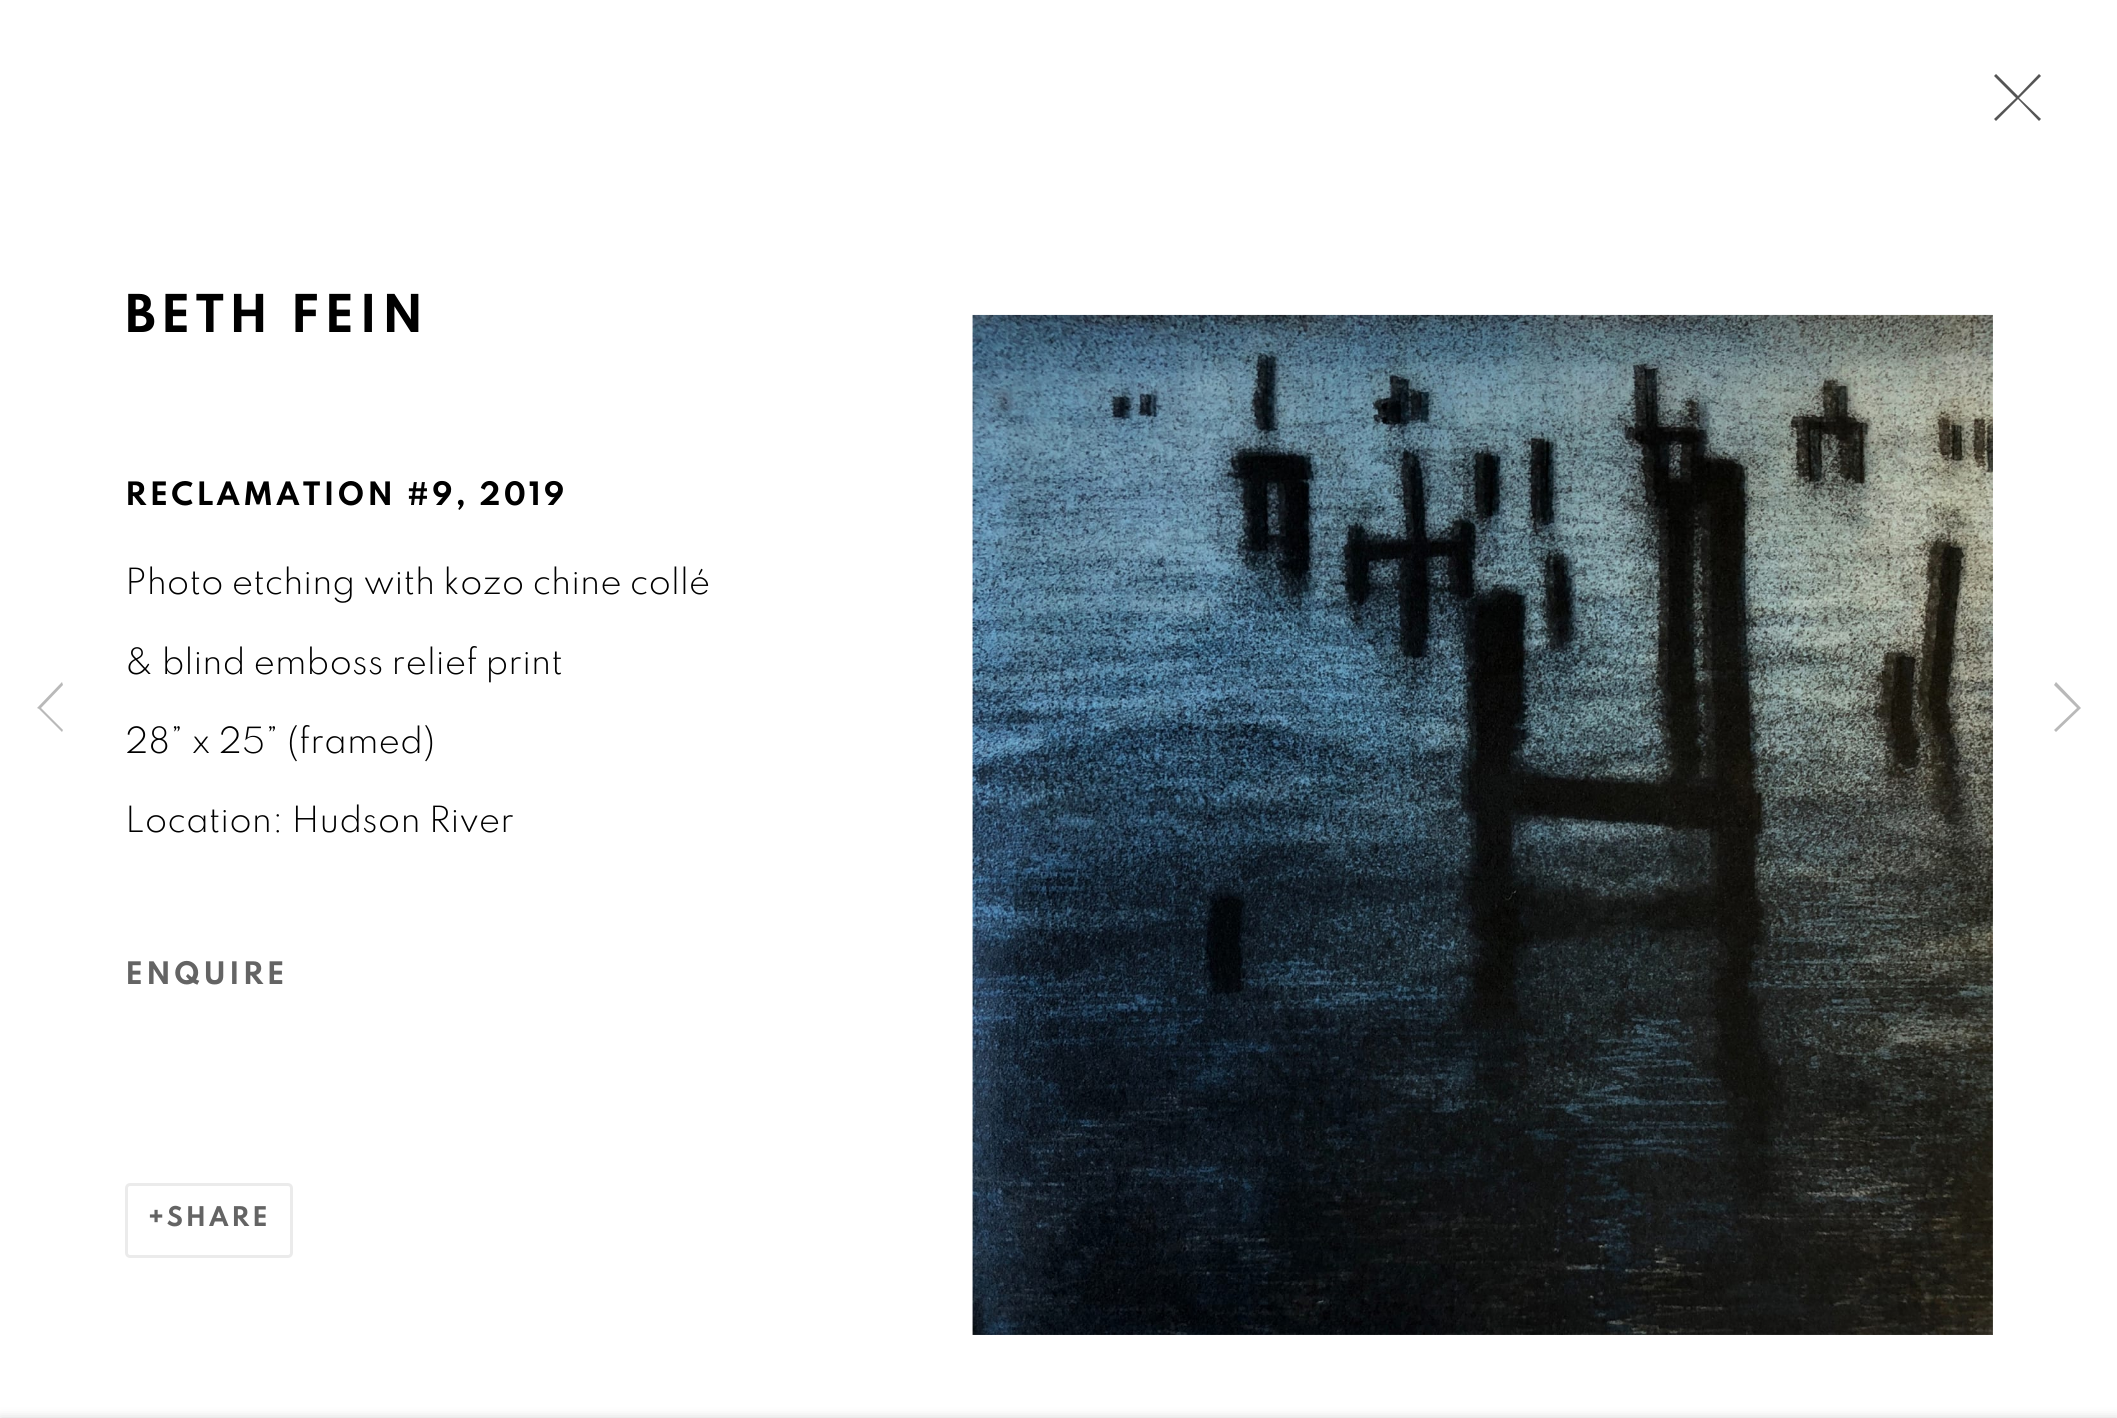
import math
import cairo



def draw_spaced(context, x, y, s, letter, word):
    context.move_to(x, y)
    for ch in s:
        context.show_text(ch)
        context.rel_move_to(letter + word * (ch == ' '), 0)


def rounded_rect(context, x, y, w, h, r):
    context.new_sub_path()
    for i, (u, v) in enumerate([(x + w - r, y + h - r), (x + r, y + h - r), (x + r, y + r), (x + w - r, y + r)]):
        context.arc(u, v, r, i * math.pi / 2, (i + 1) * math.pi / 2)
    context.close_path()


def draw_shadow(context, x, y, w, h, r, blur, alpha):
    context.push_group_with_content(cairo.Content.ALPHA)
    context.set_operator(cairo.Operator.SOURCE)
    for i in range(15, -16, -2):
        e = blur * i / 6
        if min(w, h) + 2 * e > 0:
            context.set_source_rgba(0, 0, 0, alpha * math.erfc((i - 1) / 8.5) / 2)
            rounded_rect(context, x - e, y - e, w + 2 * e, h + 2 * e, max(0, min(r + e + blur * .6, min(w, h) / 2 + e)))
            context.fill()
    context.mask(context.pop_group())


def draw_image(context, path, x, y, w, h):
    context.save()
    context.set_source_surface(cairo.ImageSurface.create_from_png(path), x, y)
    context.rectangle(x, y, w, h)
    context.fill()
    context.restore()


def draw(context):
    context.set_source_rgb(1, 1, 1)
    context.paint()
    context.set_source_rgb(85 / 255, 85 / 255, 85 / 255)
    context.new_path()
    context.move_to(2041, 76)
    context.line_to(2039, 74)
    context.line_to(2018, 96)
    context.line_to(1996, 74)
    context.line_to(1994, 76)
    context.line_to(2016, 98)
    context.line_to(1994, 119)
    context.line_to(1996, 121)
    context.line_to(2018, 99)
    context.line_to(2039, 121)
    context.line_to(2041, 119)
    context.line_to(2019, 98)
    context.close_path()
    context.fill()
    rounded_rect(context, 126.5, 1184.5, 165, 72, 3.5)
    context.set_source_rgb(235 / 255, 235 / 255, 235 / 255)
    context.set_line_width(3)
    context.stroke()
    draw_image(context, "images/1.png", 972, 314, 1021, 1021)
    context.set_source_rgb(185 / 255, 185 / 255, 185 / 255)
    context.new_path()
    context.move_to(39, 709)
    context.line_to(62, 732)
    context.line_to(63, 730)
    context.line_to(41, 708)
    context.line_to(63, 685)
    context.line_to(62, 682)
    context.line_to(37, 708)
    context.close_path()
    context.fill()
    context.new_path()
    context.move_to(2081, 708)
    context.line_to(2056, 682)
    context.line_to(2054, 685)
    context.line_to(2077, 708)
    context.line_to(2054, 730)
    context.line_to(2056, 732)
    context.close_path()
    context.fill()
    context.set_source_rgb(0, 0, 0)
    draw_shadow(context, 0, 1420, 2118, 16, 0, 6, 0.23)
    context.select_font_face("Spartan", cairo.FontSlant.NORMAL, cairo.FontWeight.BOLD)
    context.set_font_size(53.75)
    context.set_source_rgb(0, 0, 0)
    draw_spaced(context, 125, 332, "BETH FEIN", 4.75, 0)
    context.set_font_size(33.25)
    draw_spaced(context, 125, 505, "RECLAMATION #9, 2019", 3, 0)
    context.select_font_face("Spartan Light")
    context.set_font_size(37.2)
    context.move_to(125, 594)
    context.show_text("Photo etching with kozo chine collé")
    context.move_to(125, 674)
    context.show_text("& blind emboss relief print")
    context.move_to(125, 753)
    context.show_text("28” x 25” (framed)")
    context.move_to(125, 832)
    context.show_text("Location: Hudson River")
    context.select_font_face("Spartan", cairo.FontSlant.NORMAL, cairo.FontWeight.BOLD)
    context.set_font_size(32)
    context.set_source_rgb(100 / 255, 100 / 255, 100 / 255)
    draw_spaced(context, 125, 984, "ENQUIRE", 3, 0)
    context.set_font_size(28)
    draw_spaced(context, 148, 1226, "+SHARE", 2.5, 0)


surface = cairo.ImageSurface(cairo.Format.RGB24, 2117, 1418)
context = cairo.Context(surface)
options = cairo.FontOptions()
options.set_hint_metrics(cairo.HintMetrics.OFF)
options.set_hint_style(cairo.HintStyle.NONE)
context.set_font_options(options)
context.set_miter_limit(4)
draw(context)
surface.write_to_png("out.png")
